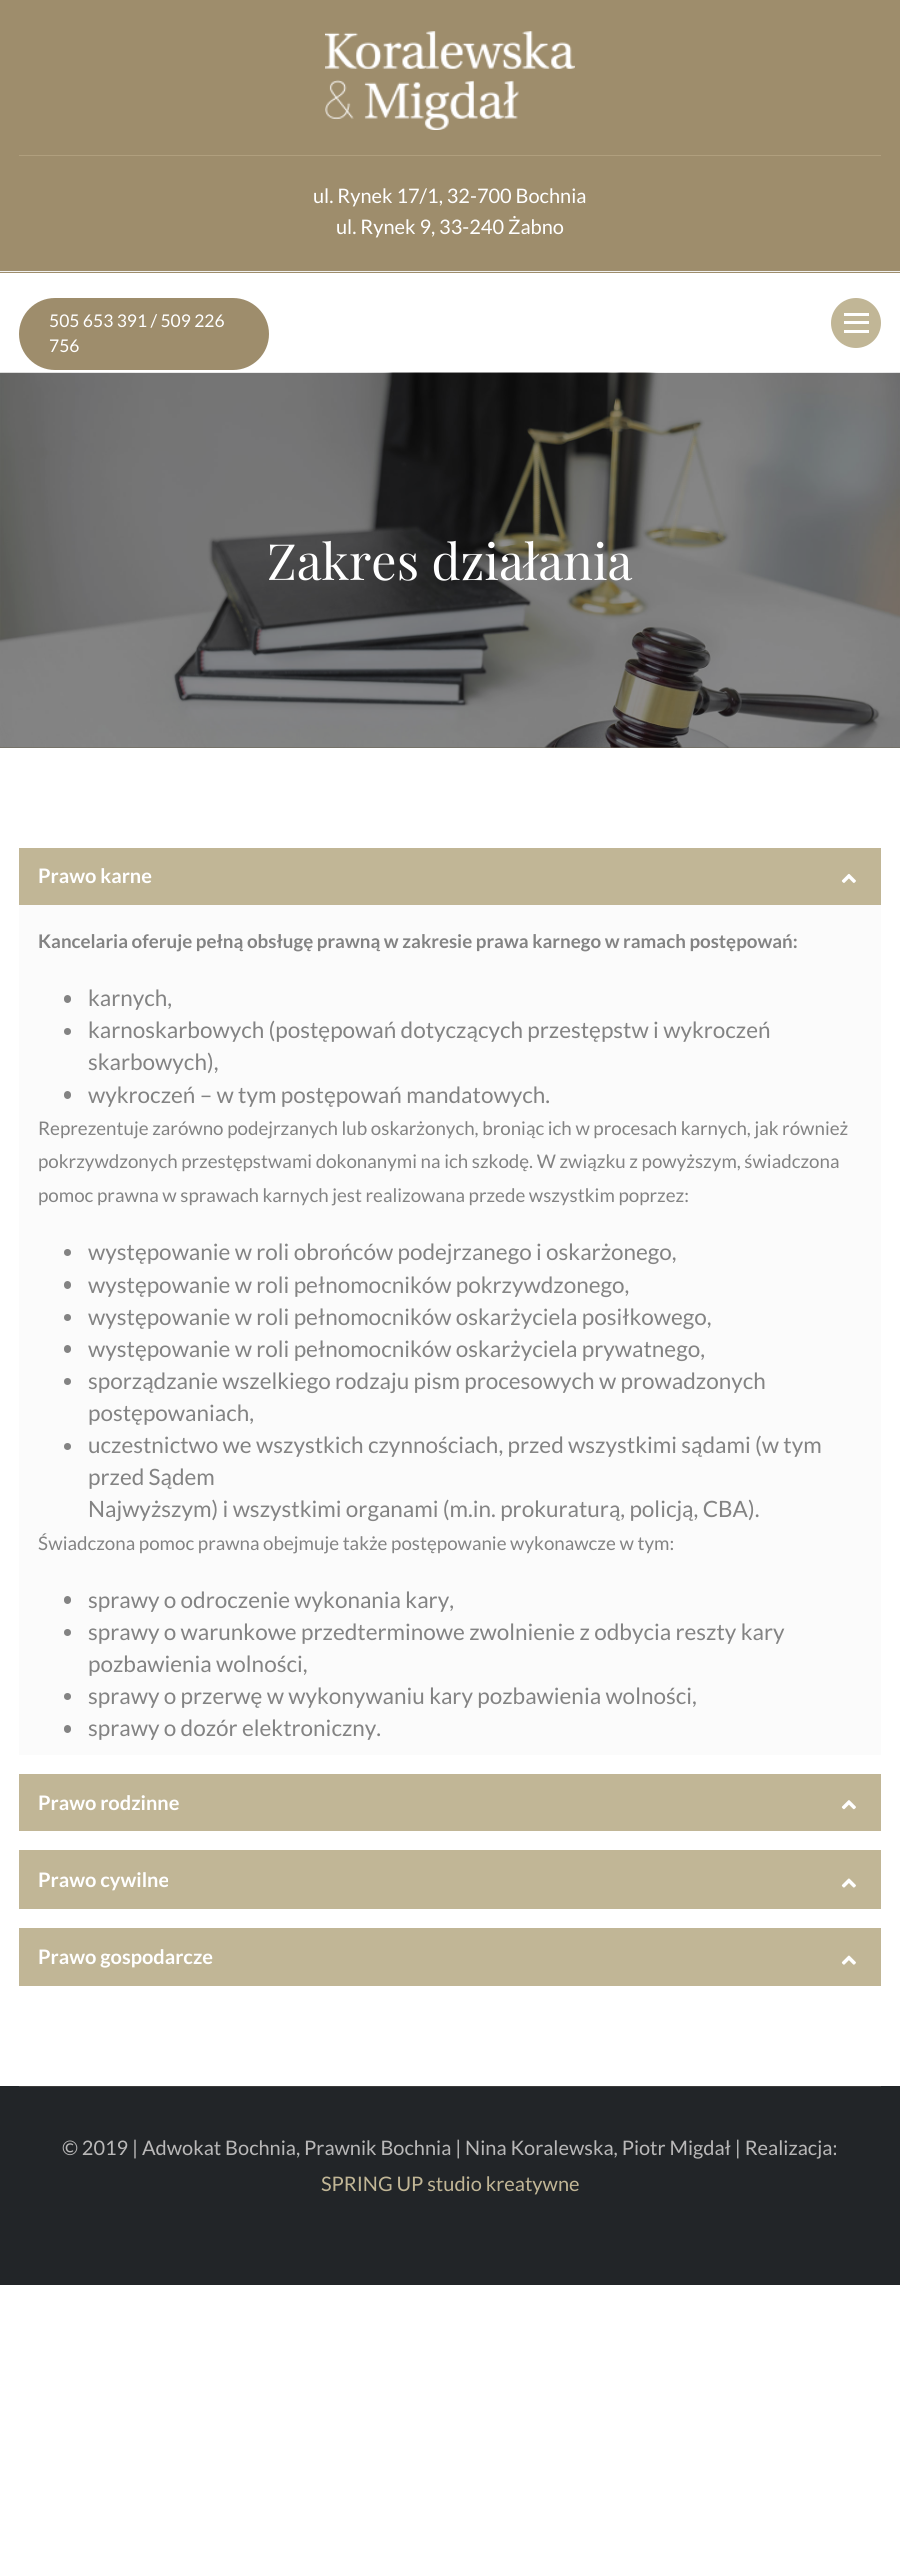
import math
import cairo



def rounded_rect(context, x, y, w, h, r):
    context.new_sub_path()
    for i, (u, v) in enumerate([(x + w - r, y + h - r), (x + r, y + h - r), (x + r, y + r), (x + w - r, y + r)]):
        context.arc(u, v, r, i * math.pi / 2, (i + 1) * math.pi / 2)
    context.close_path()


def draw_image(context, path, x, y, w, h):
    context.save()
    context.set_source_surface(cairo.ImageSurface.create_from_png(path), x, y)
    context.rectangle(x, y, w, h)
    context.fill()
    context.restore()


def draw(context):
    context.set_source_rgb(1, 1, 1)
    context.paint()
    context.set_source_rgb(158 / 255, 141 / 255, 108 / 255)
    context.rectangle(0, 0, 900, 273)
    context.fill()
    context.set_source_rgb(241 / 255, 241 / 255, 241 / 255)
    context.rectangle(0, 271, 900, 1)
    context.fill()
    draw_image(context, "images/1.png", 325, 31, 250, 99)
    context.set_source_rgb(176 / 255, 159 / 255, 126 / 255)
    context.rectangle(19, 155, 862, 1)
    context.fill()
    context.set_source_rgb(158 / 255, 141 / 255, 108 / 255)
    rounded_rect(context, 19, 298, 250, 72, 36)
    context.fill()
    context.set_source_rgb(193 / 255, 182 / 255, 150 / 255)
    context.arc(856, 323, 25, 0, 2 * math.pi)
    context.fill()
    context.set_source_rgb(1, 1, 1)
    context.rectangle(844, 313, 25, 3)
    context.fill()
    context.rectangle(844, 321, 25, 3)
    context.fill()
    context.rectangle(844, 330, 25, 3)
    context.fill()
    context.set_source_rgb(106 / 255, 100 / 255, 83 / 255)
    context.rectangle(0, 747, 900, 1)
    context.fill()
    draw_image(context, "images/2.png", 0, 372, 900, 376)
    context.set_source_rgb(193 / 255, 182 / 255, 150 / 255)
    context.rectangle(19, 848, 862, 57)
    context.fill()
    draw_image(context, "images/3.png", 841, 873, 15, 10)
    context.set_source_rgb(251 / 255, 251 / 255, 251 / 255)
    context.rectangle(19, 905, 862, 850)
    context.fill()
    context.set_source_rgb(131 / 255, 131 / 255, 131 / 255)
    rounded_rect(context, 64, 995, 7, 8, 3.5)
    context.fill()
    context.arc(67.5, 1031.5, 3.5, 0, 2 * math.pi)
    context.fill()
    rounded_rect(context, 64, 1091, 7, 8, 3.5)
    context.fill()
    context.arc(67.5, 1252.5, 3.5, 0, 2 * math.pi)
    context.fill()
    rounded_rect(context, 64, 1281, 7, 8, 3.5)
    context.fill()
    context.arc(67.5, 1317.5, 3.5, 0, 2 * math.pi)
    context.fill()
    rounded_rect(context, 64, 1345, 7, 8, 3.5)
    context.fill()
    context.arc(67.5, 1381.5, 3.5, 0, 2 * math.pi)
    context.fill()
    context.arc(67.5, 1446.5, 3.5, 0, 2 * math.pi)
    context.fill()
    rounded_rect(context, 64, 1596, 7, 8, 3.5)
    context.fill()
    context.arc(67.5, 1632.5, 3.5, 0, 2 * math.pi)
    context.fill()
    context.arc(67.5, 1696.5, 3.5, 0, 2 * math.pi)
    context.fill()
    rounded_rect(context, 64, 1725, 7, 8, 3.5)
    context.fill()
    context.set_source_rgb(193 / 255, 182 / 255, 150 / 255)
    context.rectangle(19, 1774, 862, 57)
    context.fill()
    draw_image(context, "images/4.png", 841, 1800, 15, 10)
    context.rectangle(19, 1850, 862, 59)
    context.fill()
    draw_image(context, "images/5.png", 841, 1878, 15, 10)
    context.rectangle(19, 1928, 862, 58)
    context.fill()
    draw_image(context, "images/6.png", 841, 1955, 15, 10)
    context.set_source_rgb(34 / 255, 37 / 255, 40 / 255)
    context.rectangle(0, 2086, 900, 199)
    context.fill()
    context.set_source_rgb(60 / 255, 60 / 255, 60 / 255)
    context.rectangle(19, 2086, 862, 1)
    context.fill()
    context.select_font_face("Lato")
    context.set_font_size(20)
    context.set_source_rgb(1, 1, 1)
    context.move_to(313, 203)
    context.show_text("ul. Rynek 17/1, 32-700 Bochnia")
    context.move_to(336, 234)
    context.show_text("ul. Rynek 9, 33-240 Żabno")
    context.set_font_size(17.5)
    context.move_to(49, 327)
    context.show_text("505 653 391 / 509 226")
    context.move_to(49, 352)
    context.show_text("756")
    context.select_font_face("Playfair Display")
    context.set_font_size(50)
    context.move_to(267, 580)
    context.show_text("Zakres działania")
    context.select_font_face("Lato", cairo.FontSlant.NORMAL, cairo.FontWeight.BOLD)
    context.set_font_size(20)
    context.move_to(38, 883)
    context.show_text("Prawo karne")
    context.set_font_size(18.75)
    context.set_source_rgb(131 / 255, 131 / 255, 131 / 255)
    context.move_to(38, 948)
    context.show_text("Kancelaria oferuje pełną obsługę prawną w zakresie prawa karnego w ramach postępowań:")
    context.select_font_face("Lato")
    context.set_font_size(22.5)
    context.move_to(88, 1006)
    context.show_text("karnych,")
    context.move_to(88, 1038)
    context.show_text("karnoskarbowych (postępowań dotyczących przestępstw i wykroczeń")
    context.move_to(88, 1070)
    context.show_text("skarbowych),")
    context.move_to(88, 1103)
    context.show_text("wykroczeń – w tym postępowań mandatowych.")
    context.set_font_size(18.75)
    context.move_to(38, 1135)
    context.show_text("Reprezentuje zarówno podejrzanych lub oskarżonych, broniąc ich w procesach karnych, jak również")
    context.move_to(38, 1168)
    context.show_text("pokrzywdzonych przestępstwami dokonanymi na ich szkodę. W związku z powyższym, świadczona")
    context.move_to(38, 1202)
    context.show_text("pomoc prawna w sprawach karnych jest realizowana przede wszystkim poprzez:")
    context.set_font_size(22.5)
    context.move_to(88, 1260)
    context.show_text("występowanie w roli obrońców podejrzanego i oskarżonego,")
    context.move_to(88, 1293)
    context.show_text("występowanie w roli pełnomocników pokrzywdzonego,")
    context.move_to(88, 1325)
    context.show_text("występowanie w roli pełnomocników oskarżyciela posiłkowego,")
    context.move_to(88, 1357)
    context.show_text("występowanie w roli pełnomocników oskarżyciela prywatnego,")
    context.move_to(88, 1389)
    context.show_text("sporządzanie wszelkiego rodzaju pism procesowych w prowadzonych")
    context.move_to(88, 1421)
    context.show_text("postępowaniach,")
    context.move_to(88, 1453)
    context.show_text("uczestnictwo we wszystkich czynnościach, przed wszystkimi sądami (w tym")
    context.move_to(88, 1485)
    context.show_text("przed Sądem")
    context.move_to(88, 1517)
    context.show_text("Najwyższym) i wszystkimi organami (m.in. prokuraturą, policją, CBA).")
    context.set_font_size(18.75)
    context.move_to(38, 1550)
    context.show_text("Świadczona pomoc prawna obejmuje także postępowanie wykonawcze w tym:")
    context.set_font_size(22.5)
    context.move_to(88, 1608)
    context.show_text("sprawy o odroczenie wykonania kary,")
    context.move_to(88, 1640)
    context.show_text("sprawy o warunkowe przedterminowe zwolnienie z odbycia reszty kary")
    context.move_to(88, 1672)
    context.show_text("pozbawienia wolności,")
    context.move_to(88, 1704)
    context.show_text("sprawy o przerwę w wykonywaniu kary pozbawienia wolności,")
    context.move_to(88, 1736)
    context.show_text("sprawy o dozór elektroniczny.")
    context.select_font_face("Lato", cairo.FontSlant.NORMAL, cairo.FontWeight.BOLD)
    context.set_font_size(20)
    context.set_source_rgb(1, 1, 1)
    context.move_to(38, 1810)
    context.show_text("Prawo rodzinne")
    context.move_to(38, 1887)
    context.show_text("Prawo cywilne")
    context.move_to(38, 1964)
    context.show_text("Prawo gospodarcze")
    context.select_font_face("Lato")
    context.set_source_rgb(185 / 255, 184 / 255, 184 / 255)
    context.move_to(62, 2155)
    context.show_text("© 2019 | Adwokat Bochnia, Prawnik Bochnia | Nina Koralewska, Piotr Migdał | Realizacja:")
    context.set_source_rgb(193 / 255, 182 / 255, 150 / 255)
    context.move_to(321, 2191)
    context.show_text("SPRING UP studio kreatywne")


surface = cairo.ImageSurface(cairo.Format.RGB24, 900, 2566)
context = cairo.Context(surface)
options = cairo.FontOptions()
options.set_hint_metrics(cairo.HintMetrics.OFF)
options.set_hint_style(cairo.HintStyle.NONE)
context.set_font_options(options)
context.set_miter_limit(4)
draw(context)
surface.write_to_png("out.png")
